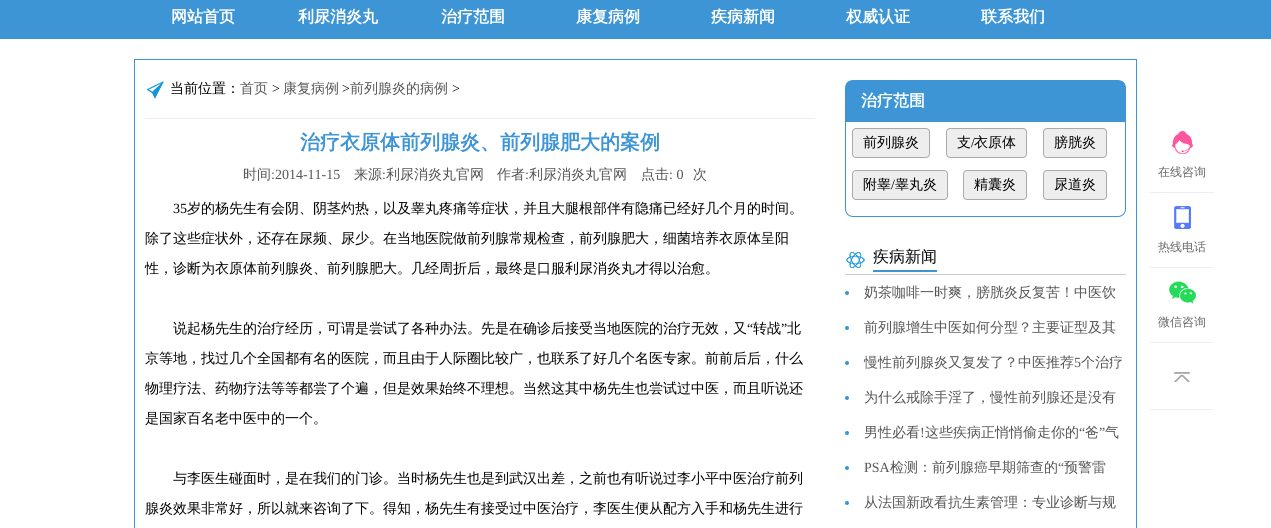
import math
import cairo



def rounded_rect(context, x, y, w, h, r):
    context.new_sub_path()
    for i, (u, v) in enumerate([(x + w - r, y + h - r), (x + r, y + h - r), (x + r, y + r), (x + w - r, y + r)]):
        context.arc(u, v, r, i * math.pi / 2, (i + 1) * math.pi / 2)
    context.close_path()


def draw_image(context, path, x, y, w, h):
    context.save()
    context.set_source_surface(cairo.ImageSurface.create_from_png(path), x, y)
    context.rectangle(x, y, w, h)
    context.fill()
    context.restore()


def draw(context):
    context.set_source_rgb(1, 1, 1)
    context.paint()
    context.set_source_rgb(61 / 255, 149 / 255, 213 / 255)
    context.rectangle(0, 0, 1271, 39)
    context.fill()
    context.set_source_rgb(238 / 255, 238 / 255, 238 / 255)
    context.rectangle(1150, 192, 64, 1)
    context.fill()
    draw_image(context, "images/1.png", 1172, 131, 21, 23)
    context.rectangle(1150, 267, 64, 1)
    context.fill()
    draw_image(context, "images/2.png", 1174, 206, 17, 23)
    context.rectangle(1150, 342, 64, 1)
    context.fill()
    draw_image(context, "images/3.png", 1169, 281, 27, 23)
    context.rectangle(1150, 409, 64, 1)
    context.fill()
    draw_image(context, "images/4.png", 1174, 372, 16, 10)
    context.rectangle(134.5, 59.5, 1002, 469)
    context.set_source_rgb(61 / 255, 149 / 255, 213 / 255)
    context.set_line_width(1)
    context.stroke()
    draw_image(context, "images/5.png", 146, 81, 18, 18)
    context.set_source_rgb(238 / 255, 238 / 255, 238 / 255)
    context.rectangle(145, 118, 670, 1)
    context.fill()
    rounded_rect(context, 845.5, 80.5, 280, 136, 7.5)
    context.set_source_rgb(61 / 255, 149 / 255, 213 / 255)
    context.stroke()
    context.new_path()
    context.move_to(851, 81)
    context.line_to(1120, 81)
    context.curve_to(1123, 81, 1125, 83, 1125, 86)
    context.line_to(1125, 122)
    context.line_to(846, 122)
    context.line_to(846, 86)
    context.curve_to(846, 83, 848, 81, 851, 81)
    context.close_path()
    context.fill()
    context.set_source_rgb(238 / 255, 238 / 255, 238 / 255)
    rounded_rect(context, 852.5, 128.5, 77, 29, 3.5)
    context.fill_preserve()
    context.set_source_rgb(170 / 255, 170 / 255, 170 / 255)
    context.stroke()
    context.set_source_rgb(238 / 255, 238 / 255, 238 / 255)
    rounded_rect(context, 946.5, 128.5, 80, 29, 3.5)
    context.fill_preserve()
    context.set_source_rgb(170 / 255, 170 / 255, 170 / 255)
    context.stroke()
    context.set_source_rgb(238 / 255, 238 / 255, 238 / 255)
    rounded_rect(context, 1043.5, 128.5, 63, 29, 3.5)
    context.fill_preserve()
    context.set_source_rgb(170 / 255, 170 / 255, 170 / 255)
    context.stroke()
    context.set_source_rgb(238 / 255, 238 / 255, 238 / 255)
    rounded_rect(context, 852.5, 170.5, 95, 29, 3.5)
    context.fill_preserve()
    context.set_source_rgb(170 / 255, 170 / 255, 170 / 255)
    context.stroke()
    context.set_source_rgb(238 / 255, 238 / 255, 238 / 255)
    rounded_rect(context, 963.5, 170.5, 63, 29, 3.5)
    context.fill_preserve()
    context.set_source_rgb(170 / 255, 170 / 255, 170 / 255)
    context.stroke()
    context.set_source_rgb(238 / 255, 238 / 255, 238 / 255)
    rounded_rect(context, 1043.5, 170.5, 63, 29, 3.5)
    context.fill_preserve()
    context.set_source_rgb(170 / 255, 170 / 255, 170 / 255)
    context.stroke()
    draw_image(context, "images/6.png", 846, 252, 19, 16)
    context.set_source_rgb(204 / 255, 204 / 255, 204 / 255)
    context.rectangle(845, 274, 281, 1)
    context.fill()
    context.set_source_rgb(61 / 255, 149 / 255, 213 / 255)
    context.rectangle(873, 270, 64, 2)
    context.fill()
    context.arc(847, 293, 2, 0, 2 * math.pi)
    context.fill()
    context.arc(847, 328, 2, 0, 2 * math.pi)
    context.fill()
    context.arc(847, 363, 2, 0, 2 * math.pi)
    context.fill()
    context.arc(847, 398, 2, 0, 2 * math.pi)
    context.fill()
    context.arc(847, 433, 2, 0, 2 * math.pi)
    context.fill()
    context.arc(847, 468, 2, 0, 2 * math.pi)
    context.fill()
    context.arc(847, 503, 2, 0, 2 * math.pi)
    context.fill()
    context.select_font_face("WenQuanYi Zen Hei", cairo.FontSlant.NORMAL, cairo.FontWeight.BOLD)
    context.set_font_size(16)
    context.set_source_rgb(1, 1, 1)
    context.move_to(171, 22)
    context.show_text("网站首页")
    context.move_to(298, 22)
    context.show_text("利尿消炎丸")
    context.move_to(441, 22)
    context.show_text("治疗范围")
    context.move_to(576, 22)
    context.show_text("康复病例")
    context.move_to(711, 22)
    context.show_text("疾病新闻")
    context.move_to(846, 22)
    context.show_text("权威认证")
    context.move_to(981, 22)
    context.show_text("联系我们")
    context.select_font_face("WenQuanYi Zen Hei Medium")
    context.set_font_size(12)
    context.set_source_rgb(102 / 255, 102 / 255, 102 / 255)
    context.move_to(1158, 176)
    context.show_text("在线咨询")
    context.move_to(1158, 251)
    context.show_text("热线电话")
    context.move_to(1158, 326)
    context.show_text("微信咨询")
    context.set_font_size(14)
    context.set_source_rgb(0, 0, 0)
    context.move_to(170, 93)
    context.show_text("当前位置：")
    context.set_source_rgb(85 / 255, 85 / 255, 85 / 255)
    context.move_to(240, 93)
    context.show_text("首页")
    context.select_font_face("Liberation Serif")
    context.set_source_rgb(0, 0, 0)
    context.move_to(272, 93)
    context.show_text(">")
    context.select_font_face("WenQuanYi Zen Hei Medium")
    context.set_source_rgb(85 / 255, 85 / 255, 85 / 255)
    context.move_to(283, 93)
    context.show_text("康复病例")
    context.select_font_face("Liberation Serif")
    context.set_source_rgb(0, 0, 0)
    context.move_to(342, 93)
    context.show_text(">")
    context.select_font_face("WenQuanYi Zen Hei Medium")
    context.set_source_rgb(85 / 255, 85 / 255, 85 / 255)
    context.move_to(350, 93)
    context.show_text("前列腺炎的病例")
    context.select_font_face("Liberation Serif")
    context.set_source_rgb(0, 0, 0)
    context.move_to(452, 93)
    context.show_text(">")
    context.select_font_face("WenQuanYi Zen Hei", cairo.FontSlant.NORMAL, cairo.FontWeight.BOLD)
    context.set_font_size(20)
    context.set_source_rgb(61 / 255, 149 / 255, 213 / 255)
    context.move_to(300, 149)
    context.show_text("治疗衣原体前列腺炎、前列腺肥大的案例")
    context.select_font_face("WenQuanYi Zen Hei Medium")
    context.set_font_size(14)
    context.set_source_rgb(85 / 255, 85 / 255, 85 / 255)
    context.move_to(243, 179)
    context.show_text("时间")
    context.select_font_face("Liberation Serif")
    context.move_to(271, 179)
    context.show_text(":2014-11-15")
    context.select_font_face("WenQuanYi Zen Hei Medium")
    context.move_to(354, 179)
    context.show_text("来源")
    context.select_font_face("Liberation Serif")
    context.move_to(382, 179)
    context.show_text(":")
    context.select_font_face("WenQuanYi Zen Hei Medium")
    context.move_to(386, 179)
    context.show_text("利尿消炎丸官网")
    context.move_to(497, 179)
    context.show_text("作者")
    context.select_font_face("Liberation Serif")
    context.move_to(525, 179)
    context.show_text(":")
    context.select_font_face("WenQuanYi Zen Hei Medium")
    context.move_to(529, 179)
    context.show_text("利尿消炎丸官网")
    context.move_to(641, 179)
    context.show_text("点击")
    context.select_font_face("Liberation Serif")
    context.move_to(669, 179)
    context.show_text(": 0")
    context.select_font_face("WenQuanYi Zen Hei Medium")
    context.move_to(693, 179)
    context.show_text("次")
    context.select_font_face("Liberation Serif")
    context.set_source_rgb(0, 0, 0)
    context.move_to(173, 213)
    context.show_text("35")
    context.select_font_face("WenQuanYi Zen Hei Medium")
    context.move_to(187, 213)
    context.show_text("岁的杨先生有会阴、阴茎灼热，以及睾丸疼痛等症状，并且大腿根部伴有隐痛已经好几个月的时间。")
    context.move_to(145, 243)
    context.show_text("除了这些症状外，还存在尿频、尿少。在当地医院做前列腺常规检查，前列腺肥大，细菌培养衣原体呈阳")
    context.move_to(145, 273)
    context.show_text("性，诊断为衣原体前列腺炎、前列腺肥大。几经周折后，最终是口服利尿消炎丸才得以治愈。")
    context.move_to(173, 333)
    context.show_text("说起杨先生的治疗经历，可谓是尝试了各种办法。先是在确诊后接受当地医院的治疗无效，又")
    context.select_font_face("Liberation Serif")
    context.move_to(747, 333)
    context.show_text("“")
    context.select_font_face("WenQuanYi Zen Hei Medium")
    context.move_to(753, 333)
    context.show_text("转战")
    context.select_font_face("Liberation Serif")
    context.move_to(781, 333)
    context.show_text("”")
    context.select_font_face("WenQuanYi Zen Hei Medium")
    context.move_to(787, 333)
    context.show_text("北")
    context.move_to(145, 363)
    context.show_text("京等地，找过几个全国都有名的医院，而且由于人际圈比较广，也联系了好几个名医专家。前前后后，什么")
    context.move_to(145, 393)
    context.show_text("物理疗法、药物疗法等等都尝了个遍，但是效果始终不理想。当然这其中杨先生也尝试过中医，而且听说还")
    context.move_to(145, 423)
    context.show_text("是国家百名老中医中的一个。")
    context.move_to(173, 483)
    context.show_text("与李医生碰面时，是在我们的门诊。当时杨先生也是到武汉出差，之前也有听说过李小平中医治疗前列")
    context.move_to(145, 513)
    context.show_text("腺炎效果非常好，所以就来咨询了下。得知，杨先生有接受过中医治疗，李医生便从配方入手和杨先生进行")
    context.select_font_face("WenQuanYi Zen Hei", cairo.FontSlant.NORMAL, cairo.FontWeight.BOLD)
    context.set_font_size(16)
    context.set_source_rgb(1, 1, 1)
    context.move_to(861, 106)
    context.show_text("治疗范围")
    context.select_font_face("WenQuanYi Zen Hei Medium")
    context.set_font_size(14)
    context.set_source_rgb(0, 0, 0)
    context.move_to(863, 147)
    context.show_text("前列腺炎")
    context.move_to(957, 147)
    context.show_text("支")
    context.select_font_face("Liberation Serif")
    context.move_to(971, 147)
    context.show_text("/")
    context.select_font_face("WenQuanYi Zen Hei Medium")
    context.move_to(974, 147)
    context.show_text("衣原体")
    context.move_to(1054, 147)
    context.show_text("膀胱炎")
    context.move_to(863, 189)
    context.show_text("附睾")
    context.select_font_face("Liberation Serif")
    context.move_to(891, 189)
    context.show_text("/")
    context.select_font_face("WenQuanYi Zen Hei Medium")
    context.move_to(895, 189)
    context.show_text("睾丸炎")
    context.move_to(974, 189)
    context.show_text("精囊炎")
    context.move_to(1054, 189)
    context.show_text("尿道炎")
    context.set_font_size(16)
    context.move_to(873, 262)
    context.show_text("疾病新闻")
    context.set_font_size(14)
    context.set_source_rgb(85 / 255, 85 / 255, 85 / 255)
    context.move_to(864, 297)
    context.show_text("奶茶咖啡一时爽，膀胱炎反复苦！中医饮")
    context.move_to(864, 332)
    context.show_text("前列腺增生中医如何分型？主要证型及其")
    context.move_to(864, 367)
    context.show_text("慢性前列腺炎又复发了？中医推荐")
    context.select_font_face("Liberation Serif")
    context.move_to(1074, 367)
    context.show_text("5")
    context.select_font_face("WenQuanYi Zen Hei Medium")
    context.move_to(1081, 367)
    context.show_text("个治疗")
    context.move_to(864, 402)
    context.show_text("为什么戒除手淫了，慢性前列腺还是没有")
    context.move_to(864, 437)
    context.show_text("男性必看")
    context.select_font_face("Liberation Serif")
    context.move_to(920, 437)
    context.show_text("!")
    context.select_font_face("WenQuanYi Zen Hei Medium")
    context.move_to(925, 437)
    context.show_text("这些疾病正悄悄偷走你的")
    context.select_font_face("Liberation Serif")
    context.move_to(1079, 437)
    context.show_text("“")
    context.select_font_face("WenQuanYi Zen Hei Medium")
    context.move_to(1085, 437)
    context.show_text("爸")
    context.select_font_face("Liberation Serif")
    context.move_to(1099, 437)
    context.show_text("”")
    context.select_font_face("WenQuanYi Zen Hei Medium")
    context.move_to(1105, 437)
    context.show_text("气")
    context.select_font_face("Liberation Serif")
    context.move_to(864, 472)
    context.show_text("PSA")
    context.select_font_face("WenQuanYi Zen Hei Medium")
    context.move_to(890, 472)
    context.show_text("检测：前列腺癌早期筛查的")
    context.select_font_face("Liberation Serif")
    context.move_to(1058, 472)
    context.show_text("“")
    context.select_font_face("WenQuanYi Zen Hei Medium")
    context.move_to(1064, 472)
    context.show_text("预警雷")
    context.move_to(864, 507)
    context.show_text("从法国新政看抗生素管理：专业诊断与规")


surface = cairo.ImageSurface(cairo.Format.RGB24, 1271, 528)
context = cairo.Context(surface)
options = cairo.FontOptions()
options.set_hint_metrics(cairo.HintMetrics.OFF)
options.set_hint_style(cairo.HintStyle.NONE)
context.set_font_options(options)
context.set_miter_limit(4)
draw(context)
surface.write_to_png("out.png")
